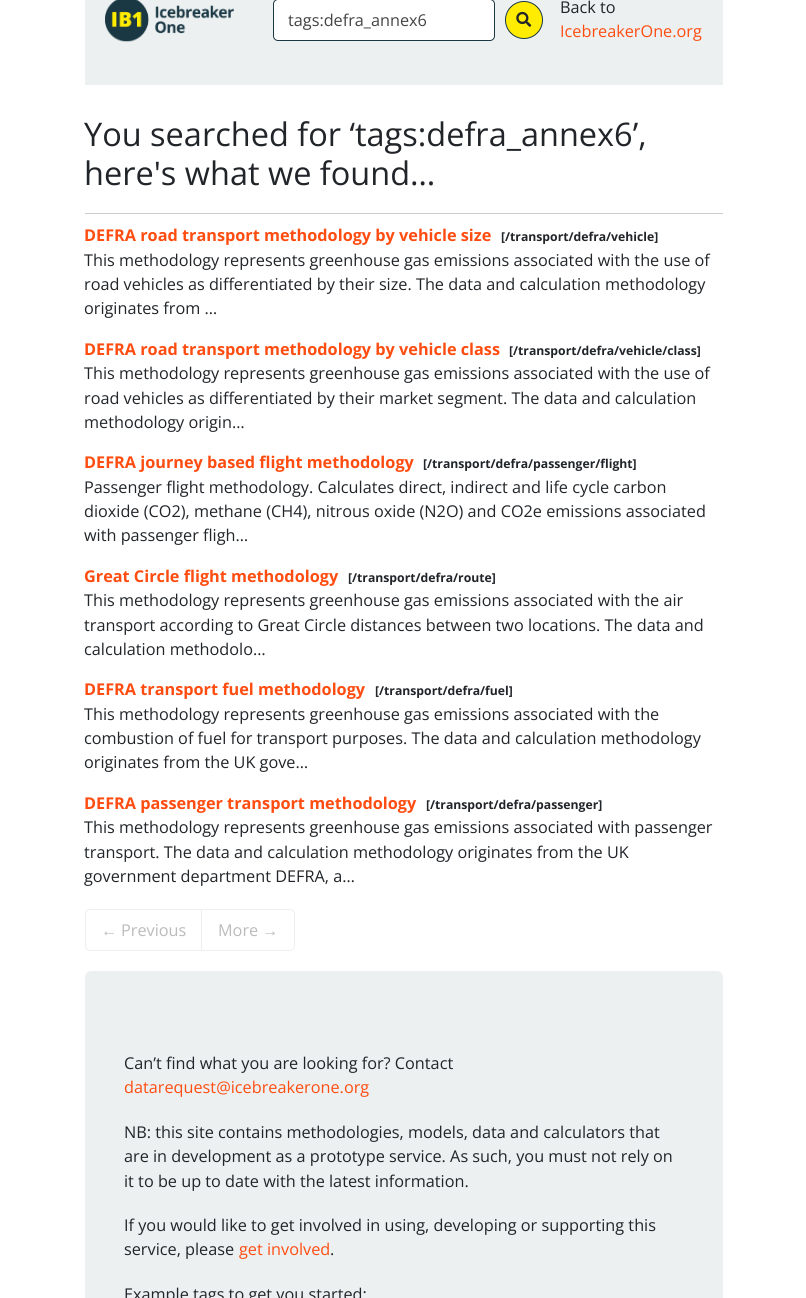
import math
import cairo



def rounded_rect(context, x, y, w, h, r):
    context.new_sub_path()
    for i, (u, v) in enumerate([(x + w - r, y + h - r), (x + r, y + h - r), (x + r, y + r), (x + w - r, y + r)]):
        context.arc(u, v, r, i * math.pi / 2, (i + 1) * math.pi / 2)
    context.close_path()


def draw_image(context, path, x, y, w, h):
    context.save()
    context.set_source_surface(cairo.ImageSurface.create_from_png(path), x, y)
    context.rectangle(x, y, w, h)
    context.fill()
    context.restore()


def draw(context):
    context.set_source_rgb(1, 1, 1)
    context.paint()
    context.set_source_rgb(236 / 255, 240 / 255, 241 / 255)
    context.rectangle(85, 0, 638, 85)
    context.fill()
    draw_image(context, "images/1.png", 105, 0, 129, 42)
    context.set_source_rgb(1, 1, 1)
    rounded_rect(context, 273.5, -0.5, 221, 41, 4.5)
    context.fill_preserve()
    context.set_source_rgb(26 / 255, 56 / 255, 68 / 255)
    context.set_line_width(1)
    context.stroke()
    context.set_source_rgb(1, 236 / 255, 0)
    context.arc(524, 20, 18.5, 0, 2 * math.pi)
    context.fill_preserve()
    context.set_source_rgb(26 / 255, 56 / 255, 68 / 255)
    context.stroke()
    draw_image(context, "images/2.png", 516, 11, 16, 16)
    context.set_source_rgb(204 / 255, 204 / 255, 204 / 255)
    context.rectangle(85, 213, 638, 1)
    context.fill()
    context.new_path()
    context.move_to(90, 909.5)
    context.line_to(202.5, 909.5)
    context.line_to(202.5, 950.5)
    context.line_to(90, 950.5)
    context.curve_to(87.5, 950.5, 85.5, 948.5, 85.5, 946)
    context.line_to(85.5, 914)
    context.curve_to(85.5, 911.5, 87.5, 909.5, 90, 909.5)
    context.close_path()
    context.set_source_rgb(238 / 255, 238 / 255, 238 / 255)
    context.stroke()
    context.set_source_rgb(1, 1, 1)
    context.new_path()
    context.move_to(201.5, 909.5)
    context.line_to(290, 909.5)
    context.curve_to(292.5, 909.5, 294.5, 911.5, 294.5, 914)
    context.line_to(294.5, 946)
    context.curve_to(294.5, 948.5, 292.5, 950.5, 290, 950.5)
    context.line_to(201.5, 950.5)
    context.close_path()
    context.fill_preserve()
    context.set_source_rgb(238 / 255, 238 / 255, 238 / 255)
    context.stroke()
    context.set_source_rgb(236 / 255, 240 / 255, 241 / 255)
    rounded_rect(context, 85, 971, 638, 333, 6)
    context.fill()
    context.select_font_face("Open Sans")
    context.set_font_size(16.25)
    context.set_source_rgb(68 / 255, 68 / 255, 68 / 255)
    context.move_to(288, 26)
    context.show_text("tags:defra_annex6")
    context.set_source_rgb(33 / 255, 37 / 255, 41 / 255)
    context.move_to(560, 13)
    context.show_text("Back to")
    context.set_source_rgb(1, 77 / 255, 17 / 255)
    context.move_to(560, 37)
    context.show_text("IcebreakerOne.org")
    context.set_font_size(32.5)
    context.set_source_rgb(33 / 255, 37 / 255, 41 / 255)
    context.move_to(84, 146)
    context.show_text("You searched for ‘tags:defra_annex6’,")
    context.move_to(84, 185)
    context.show_text("here's what we found…")
    context.select_font_face("Open Sans", cairo.FontSlant.NORMAL, cairo.FontWeight.BOLD)
    context.set_font_size(16.25)
    context.set_source_rgb(1, 77 / 255, 17 / 255)
    context.move_to(84, 241)
    context.show_text("DEFRA road transport methodology by vehicle size")
    context.set_font_size(12.2)
    context.set_source_rgb(33 / 255, 37 / 255, 41 / 255)
    context.move_to(501, 241)
    context.show_text("[/transport/defra/vehicle]")
    context.select_font_face("Open Sans")
    context.set_font_size(16.25)
    context.move_to(84, 266)
    context.show_text("This methodology represents greenhouse gas emissions associated with the use of")
    context.move_to(84, 290)
    context.show_text("road vehicles as differentiated by their size. The data and calculation methodology")
    context.move_to(84, 314)
    context.show_text("originates from …")
    context.select_font_face("Open Sans", cairo.FontSlant.NORMAL, cairo.FontWeight.BOLD)
    context.set_source_rgb(1, 77 / 255, 17 / 255)
    context.move_to(84, 355)
    context.show_text("DEFRA road transport methodology by vehicle class")
    context.set_font_size(12.2)
    context.set_source_rgb(33 / 255, 37 / 255, 41 / 255)
    context.move_to(509, 355)
    context.show_text("[/transport/defra/vehicle/class]")
    context.select_font_face("Open Sans")
    context.set_font_size(16.25)
    context.move_to(84, 379)
    context.show_text("This methodology represents greenhouse gas emissions associated with the use of")
    context.move_to(84, 404)
    context.show_text("road vehicles as differentiated by their market segment. The data and calculation")
    context.move_to(84, 428)
    context.show_text("methodology origin…")
    context.select_font_face("Open Sans", cairo.FontSlant.NORMAL, cairo.FontWeight.BOLD)
    context.set_source_rgb(1, 77 / 255, 17 / 255)
    context.move_to(84, 468)
    context.show_text("DEFRA journey based flight methodology")
    context.set_font_size(12.2)
    context.set_source_rgb(33 / 255, 37 / 255, 41 / 255)
    context.move_to(423, 468)
    context.show_text("[/transport/defra/passenger/flight]")
    context.select_font_face("Open Sans")
    context.set_font_size(16.25)
    context.move_to(84, 493)
    context.show_text("Passenger flight methodology. Calculates direct, indirect and life cycle carbon")
    context.move_to(84, 517)
    context.show_text("dioxide (CO2), methane (CH4), nitrous oxide (N2O) and CO2e emissions associated")
    context.move_to(84, 541)
    context.show_text("with passenger fligh…")
    context.select_font_face("Open Sans", cairo.FontSlant.NORMAL, cairo.FontWeight.BOLD)
    context.set_source_rgb(1, 77 / 255, 17 / 255)
    context.move_to(84, 582)
    context.show_text("Great Circle flight methodology")
    context.set_font_size(12.2)
    context.set_source_rgb(33 / 255, 37 / 255, 41 / 255)
    context.move_to(348, 582)
    context.show_text("[/transport/defra/route]")
    context.select_font_face("Open Sans")
    context.set_font_size(16.25)
    context.move_to(84, 606)
    context.show_text("This methodology represents greenhouse gas emissions associated with the air")
    context.move_to(84, 631)
    context.show_text("transport according to Great Circle distances between two locations. The data and")
    context.move_to(84, 655)
    context.show_text("calculation methodolo…")
    context.select_font_face("Open Sans", cairo.FontSlant.NORMAL, cairo.FontWeight.BOLD)
    context.set_source_rgb(1, 77 / 255, 17 / 255)
    context.move_to(84, 695)
    context.show_text("DEFRA transport fuel methodology")
    context.set_font_size(12.2)
    context.set_source_rgb(33 / 255, 37 / 255, 41 / 255)
    context.move_to(375, 695)
    context.show_text("[/transport/defra/fuel]")
    context.select_font_face("Open Sans")
    context.set_font_size(16.25)
    context.move_to(84, 720)
    context.show_text("This methodology represents greenhouse gas emissions associated with the")
    context.move_to(84, 744)
    context.show_text("combustion of fuel for transport purposes. The data and calculation methodology")
    context.move_to(84, 768)
    context.show_text("originates from the UK gove…")
    context.select_font_face("Open Sans", cairo.FontSlant.NORMAL, cairo.FontWeight.BOLD)
    context.set_source_rgb(1, 77 / 255, 17 / 255)
    context.move_to(84, 809)
    context.show_text("DEFRA passenger transport methodology")
    context.set_font_size(12.2)
    context.set_source_rgb(33 / 255, 37 / 255, 41 / 255)
    context.move_to(426, 809)
    context.show_text("[/transport/defra/passenger]")
    context.select_font_face("Open Sans")
    context.set_font_size(16.25)
    context.move_to(84, 833)
    context.show_text("This methodology represents greenhouse gas emissions associated with passenger")
    context.move_to(84, 858)
    context.show_text("transport. The data and calculation methodology originates from the UK")
    context.move_to(84, 882)
    context.show_text("government department DEFRA, a…")
    context.select_font_face("Liberation Sans")
    context.set_source_rgb(187 / 255, 187 / 255, 187 / 255)
    context.move_to(101, 936)
    context.show_text("←")
    context.select_font_face("Open Sans")
    context.move_to(121, 936)
    context.show_text("Previous")
    context.move_to(218, 936)
    context.show_text("More")
    context.select_font_face("Liberation Sans")
    context.move_to(262, 936)
    context.show_text("→")
    context.select_font_face("Open Sans")
    context.set_source_rgb(33 / 255, 37 / 255, 41 / 255)
    context.move_to(124, 1069)
    context.show_text("Can’t find what you are looking for? Contact")
    context.set_source_rgb(1, 77 / 255, 17 / 255)
    context.move_to(124, 1093)
    context.show_text("datarequest@icebreakerone.org")
    context.set_source_rgb(33 / 255, 37 / 255, 41 / 255)
    context.move_to(124, 1138)
    context.show_text("NB: this site contains methodologies, models, data and calculators that")
    context.move_to(124, 1162)
    context.show_text("are in development as a prototype service. As such, you must not rely on")
    context.move_to(124, 1187)
    context.show_text("it to be up to date with the latest information.")
    context.move_to(124, 1231)
    context.show_text("If you would like to get involved in using, developing or supporting this")
    context.move_to(124, 1255)
    context.show_text("service, please")
    context.set_source_rgb(1, 77 / 255, 17 / 255)
    context.move_to(239, 1255)
    context.show_text("get involved")
    context.set_source_rgb(33 / 255, 37 / 255, 41 / 255)
    context.move_to(330, 1255)
    context.show_text(".")
    context.move_to(124, 1300)
    context.show_text("Example tags to get you started:")


surface = cairo.ImageSurface(cairo.Format.RGB24, 806, 1298)
context = cairo.Context(surface)
options = cairo.FontOptions()
options.set_hint_metrics(cairo.HintMetrics.OFF)
options.set_hint_style(cairo.HintStyle.NONE)
context.set_font_options(options)
context.set_miter_limit(4)
draw(context)
surface.write_to_png("out.png")
